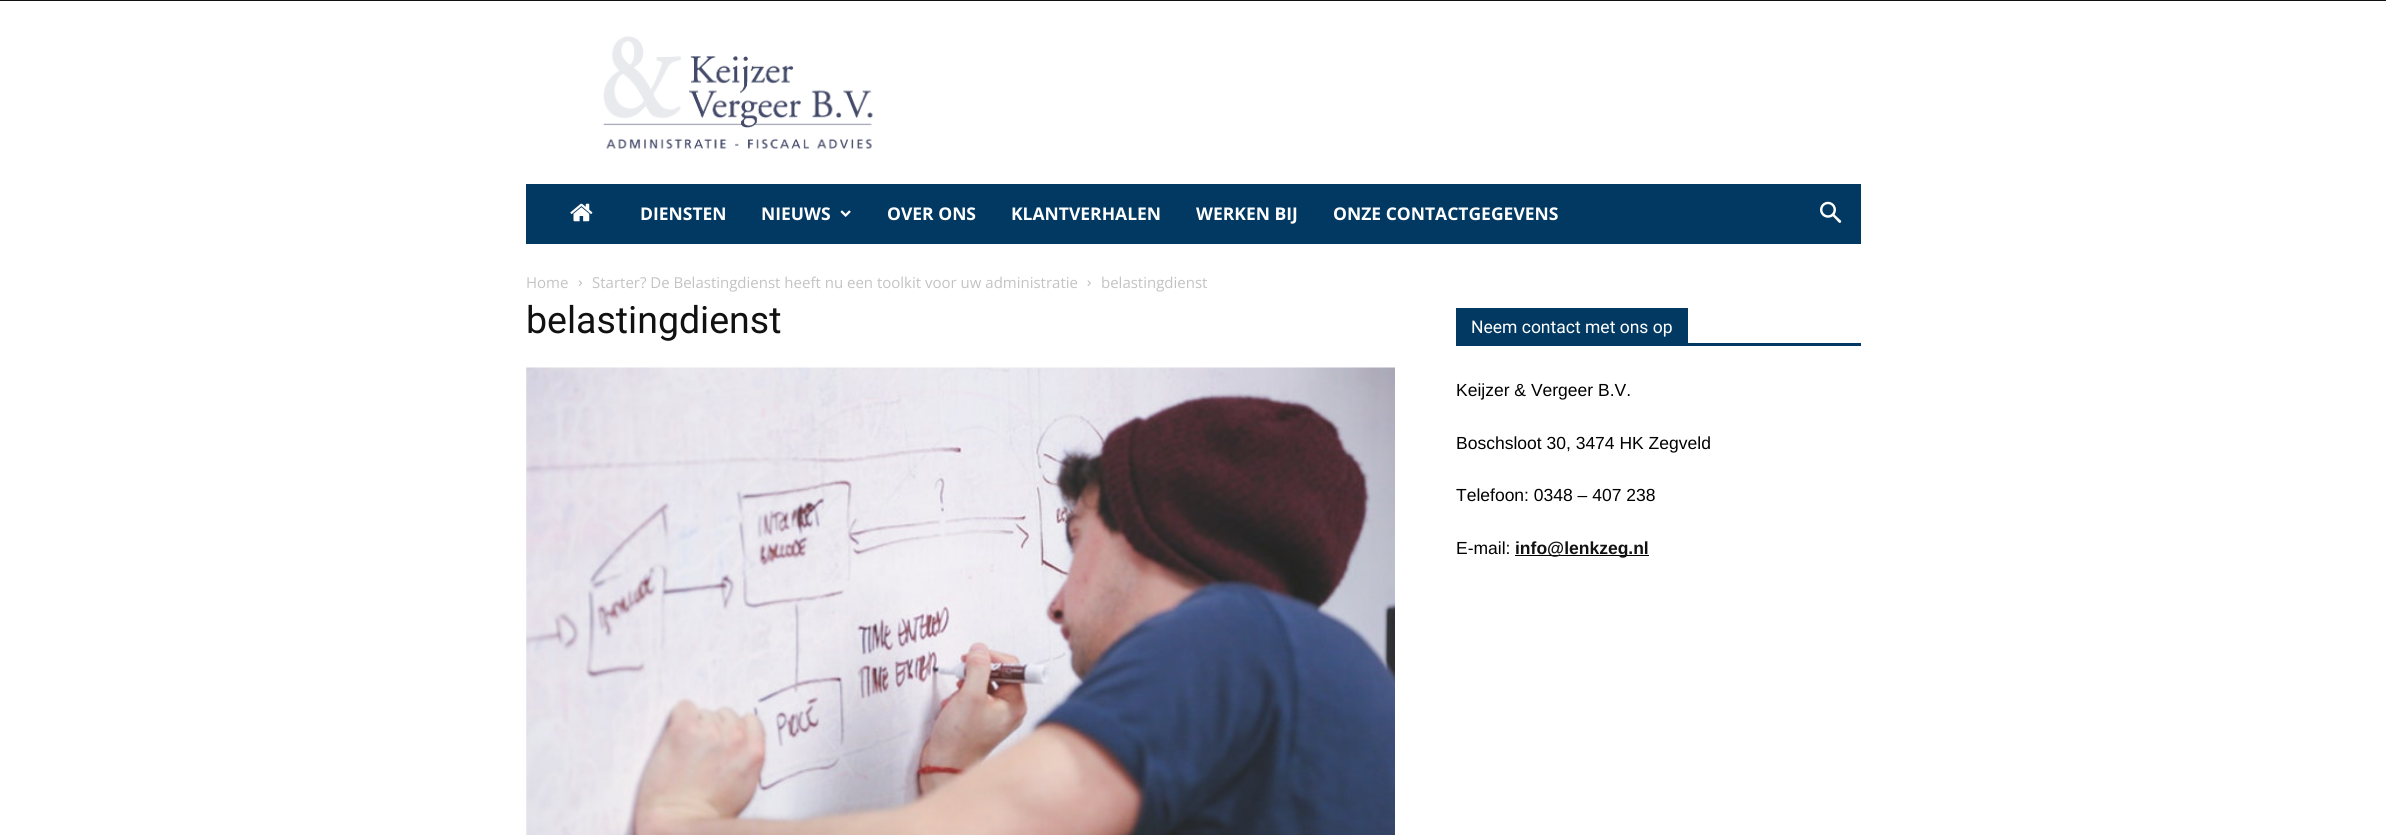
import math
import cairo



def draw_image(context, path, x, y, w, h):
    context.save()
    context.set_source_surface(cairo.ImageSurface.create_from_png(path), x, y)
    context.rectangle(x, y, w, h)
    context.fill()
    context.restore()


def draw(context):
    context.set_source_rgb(1, 1, 1)
    context.paint()
    context.set_source_rgb(17 / 255, 17 / 255, 17 / 255)
    context.rectangle(0, 0, 2386, 1)
    context.fill()
    draw_image(context, "images/1.png", 603, 36, 270, 113)
    context.set_source_rgb(2 / 255, 57 / 255, 98 / 255)
    context.rectangle(526, 184, 1335, 60)
    context.fill()
    draw_image(context, "images/2.png", 570, 203, 23, 19)
    draw_image(context, "images/3.png", 840, 210, 11, 7)
    draw_image(context, "images/4.png", 1820, 201, 22, 22)
    draw_image(context, "images/5.png", 578, 280, 4, 6)
    draw_image(context, "images/6.png", 1087, 280, 4, 6)
    draw_image(context, "images/7.png", 526, 367, 869, 468)
    context.rectangle(1456, 343, 405, 3)
    context.fill()
    context.rectangle(1456, 308, 232, 35)
    context.fill()
    context.set_source_rgb(0, 0, 0)
    context.rectangle(1515, 555, 134, 1)
    context.fill()
    context.select_font_face("Open Sans", cairo.FontSlant.NORMAL, cairo.FontWeight.BOLD)
    context.set_font_size(17.5)
    context.set_source_rgb(1, 1, 1)
    context.move_to(640, 220)
    context.show_text("DIENSTEN")
    context.move_to(761, 220)
    context.show_text("NIEUWS")
    context.move_to(887, 220)
    context.show_text("OVER ONS")
    context.move_to(1011, 220)
    context.show_text("KLANTVERHALEN")
    context.move_to(1196, 220)
    context.show_text("WERKEN BIJ")
    context.move_to(1333, 220)
    context.show_text("ONZE CONTACTGEGEVENS")
    context.select_font_face("Open Sans")
    context.set_font_size(15)
    context.set_source_rgb(195 / 255, 195 / 255, 195 / 255)
    context.move_to(526, 288)
    context.show_text("Home")
    context.move_to(592, 288)
    context.show_text("Starter? De Belastingdienst heeft nu een toolkit voor uw administratie")
    context.move_to(1101, 288)
    context.show_text("belastingdienst")
    context.select_font_face("Roboto")
    context.set_font_size(37.5)
    context.set_source_rgb(17 / 255, 17 / 255, 17 / 255)
    context.move_to(526, 333)
    context.show_text("belastingdienst")
    context.set_font_size(17.5)
    context.set_source_rgb(1, 1, 1)
    context.move_to(1471, 333)
    context.show_text("Neem contact met ons op")
    context.select_font_face("Liberation Sans")
    context.set_source_rgb(0, 0, 0)
    context.move_to(1456, 396)
    context.show_text("Keijzer & Vergeer B.V.")
    context.move_to(1456, 449)
    context.show_text("Boschsloot 30, 3474 HK Zegveld")
    context.move_to(1456, 501)
    context.show_text("Telefoon: 0348 – 407 238")
    context.move_to(1456, 554)
    context.show_text("E-mail:")
    context.select_font_face("Liberation Sans", cairo.FontSlant.NORMAL, cairo.FontWeight.BOLD)
    context.set_source_rgb(17 / 255, 17 / 255, 17 / 255)
    context.move_to(1515, 554)
    context.show_text("info@lenkzeg.nl")


surface = cairo.ImageSurface(cairo.Format.RGB24, 2386, 835)
context = cairo.Context(surface)
options = cairo.FontOptions()
options.set_hint_metrics(cairo.HintMetrics.OFF)
options.set_hint_style(cairo.HintStyle.NONE)
context.set_font_options(options)
context.set_miter_limit(4)
draw(context)
surface.write_to_png("out.png")
